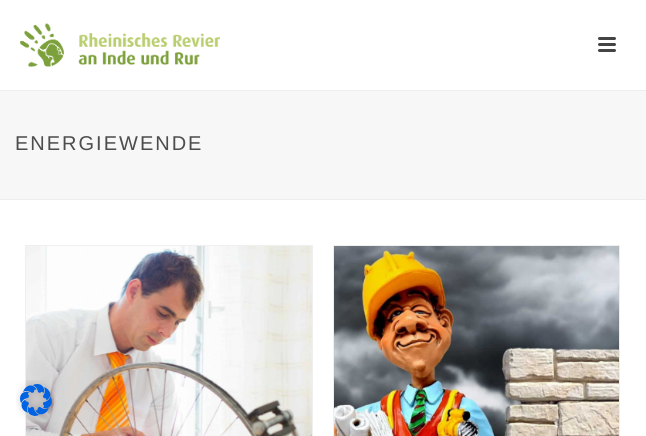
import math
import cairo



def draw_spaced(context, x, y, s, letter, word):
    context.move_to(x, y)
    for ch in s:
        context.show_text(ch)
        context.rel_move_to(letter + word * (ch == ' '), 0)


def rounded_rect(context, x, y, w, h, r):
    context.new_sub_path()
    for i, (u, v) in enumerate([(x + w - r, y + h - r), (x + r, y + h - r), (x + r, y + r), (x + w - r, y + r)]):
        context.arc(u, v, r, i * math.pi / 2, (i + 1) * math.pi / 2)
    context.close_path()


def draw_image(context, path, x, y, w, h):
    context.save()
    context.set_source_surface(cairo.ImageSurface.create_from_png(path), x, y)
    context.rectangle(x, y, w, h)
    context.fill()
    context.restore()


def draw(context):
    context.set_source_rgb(1, 1, 1)
    context.paint()
    context.set_source_rgb(247 / 255, 247 / 255, 247 / 255)
    context.rectangle(0, 91, 646, 108)
    context.fill()
    context.set_source_rgb(237 / 255, 237 / 255, 237 / 255)
    context.rectangle(0, 199, 646, 1)
    context.fill()
    context.rectangle(0, 90, 646, 1)
    context.fill()
    draw_image(context, "images/1.png", 20, 23, 200, 44)
    context.set_source_rgb(68 / 255, 68 / 255, 68 / 255)
    rounded_rect(context, 598, 37, 18, 3, 1.5)
    context.fill()
    rounded_rect(context, 598, 43, 18, 3, 1.5)
    context.fill()
    rounded_rect(context, 598, 49, 18, 3, 1.5)
    context.fill()
    context.rectangle(25.5, 245.5, 287, 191)
    context.set_source_rgb(239 / 255, 239 / 255, 239 / 255)
    context.set_line_width(1)
    context.stroke()
    draw_image(context, "images/2.png", 26, 246, 286, 190)
    context.rectangle(333.5, 245.5, 286, 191)
    context.stroke()
    draw_image(context, "images/3.png", 334, 246, 285, 190)
    draw_image(context, "images/4.png", 16, 380, 40, 40)
    context.select_font_face("Liberation Sans")
    context.set_font_size(20)
    context.set_source_rgb(77 / 255, 77 / 255, 77 / 255)
    draw_spaced(context, 15, 150, "ENERGIEWENDE", 2, 0)


surface = cairo.ImageSurface(cairo.Format.RGB24, 646, 436)
context = cairo.Context(surface)
options = cairo.FontOptions()
options.set_hint_metrics(cairo.HintMetrics.OFF)
options.set_hint_style(cairo.HintStyle.NONE)
context.set_font_options(options)
context.set_miter_limit(4)
draw(context)
surface.write_to_png("out.png")
